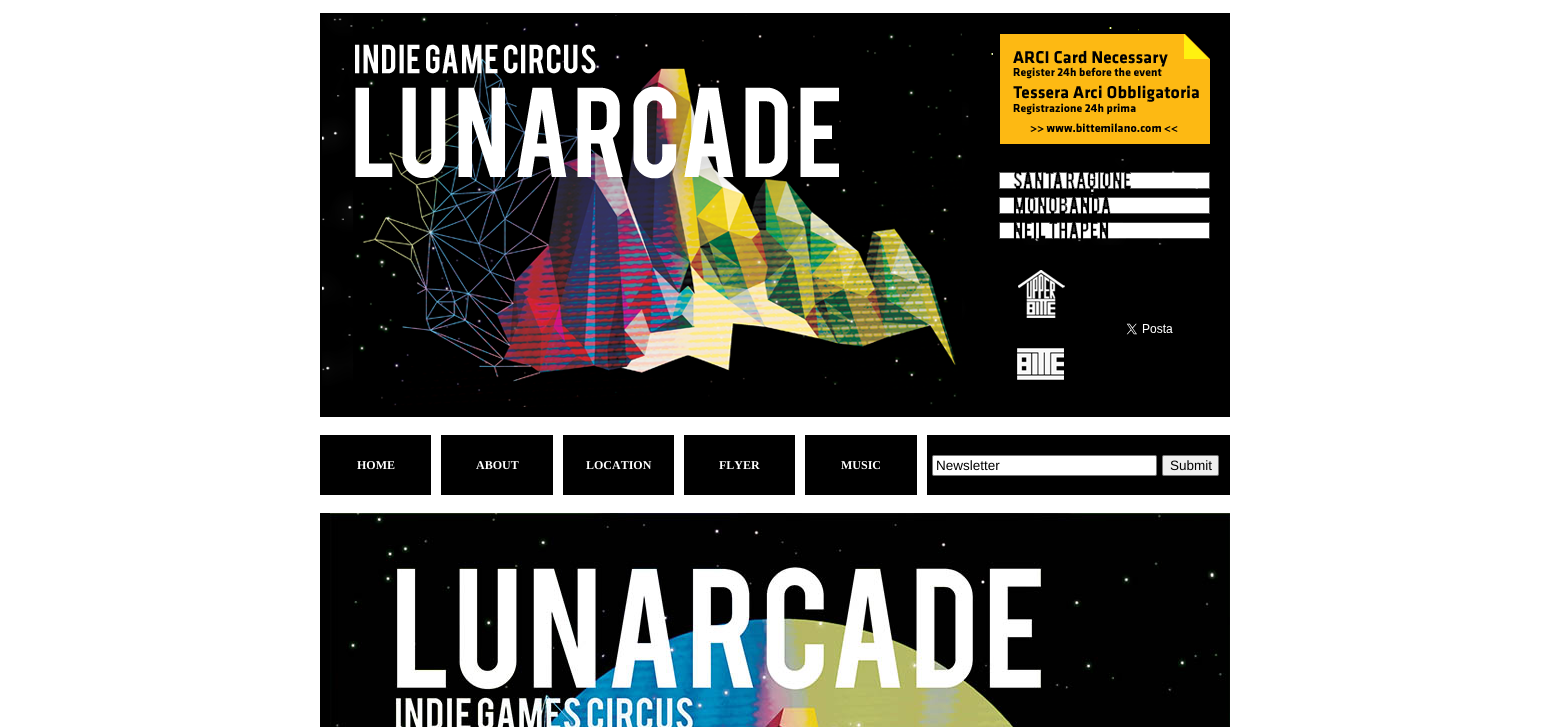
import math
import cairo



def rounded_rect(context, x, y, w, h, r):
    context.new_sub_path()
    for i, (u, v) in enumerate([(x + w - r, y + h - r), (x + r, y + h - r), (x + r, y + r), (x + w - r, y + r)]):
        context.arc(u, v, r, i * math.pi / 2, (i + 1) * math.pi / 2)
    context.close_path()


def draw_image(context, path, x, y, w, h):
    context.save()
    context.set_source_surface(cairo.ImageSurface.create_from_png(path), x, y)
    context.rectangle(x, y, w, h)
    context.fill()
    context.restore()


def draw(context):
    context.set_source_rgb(1, 1, 1)
    context.paint()
    context.set_source_rgb(0, 0, 0)
    context.rectangle(320, 13, 910, 404)
    context.fill()
    draw_image(context, "images/1.png", 322, 15, 647, 392)
    draw_image(context, "images/2.png", 991, 27, 219, 117)
    draw_image(context, "images/3.png", 999, 158, 211, 34)
    draw_image(context, "images/4.png", 999, 194, 211, 20)
    draw_image(context, "images/5.png", 999, 222, 211, 23)
    draw_image(context, "images/6.png", 1018, 270, 47, 48)
    draw_image(context, "images/7.png", 1017, 348, 47, 32)
    draw_image(context, "images/8.png", 1126, 323, 47, 12)
    context.rectangle(320, 435, 111, 60)
    context.fill()
    context.rectangle(441, 435, 112, 60)
    context.fill()
    context.rectangle(563, 435, 111, 60)
    context.fill()
    context.rectangle(684, 435, 111, 60)
    context.fill()
    context.rectangle(805, 435, 112, 60)
    context.fill()
    context.rectangle(927, 435, 303, 60)
    context.fill()
    context.set_source_rgb(1, 1, 1)
    rounded_rect(context, 932.5, 455.5, 224, 20, 1.5)
    context.fill_preserve()
    context.set_source_rgb(118 / 255, 118 / 255, 118 / 255)
    context.set_line_width(1)
    context.stroke()
    context.set_source_rgb(239 / 255, 239 / 255, 239 / 255)
    rounded_rect(context, 1162.5, 455.5, 56, 20, 1.5)
    context.fill_preserve()
    context.set_source_rgb(118 / 255, 118 / 255, 118 / 255)
    context.stroke()
    context.set_source_rgb(0, 0, 0)
    context.rectangle(320, 513, 10, 214)
    context.fill()
    draw_image(context, "images/9.png", 330, 513, 900, 214)
    context.select_font_face("Liberation Serif", cairo.FontSlant.NORMAL, cairo.FontWeight.BOLD)
    context.set_font_size(12)
    context.set_source_rgb(1, 1, 1)
    context.move_to(357, 469)
    context.show_text("HOME")
    context.move_to(476, 469)
    context.show_text("ABOUT")
    context.move_to(586, 469)
    context.show_text("LOCATION")
    context.move_to(719, 469)
    context.show_text("FLYER")
    context.move_to(841, 469)
    context.show_text("MUSIC")
    context.select_font_face("Liberation Sans")
    context.set_font_size(13.5)
    context.set_source_rgb(0, 0, 0)
    context.move_to(936, 470)
    context.show_text("Newsletter")
    context.move_to(1170, 470)
    context.show_text("Submit")


surface = cairo.ImageSurface(cairo.Format.RGB24, 1551, 727)
context = cairo.Context(surface)
options = cairo.FontOptions()
options.set_hint_metrics(cairo.HintMetrics.OFF)
options.set_hint_style(cairo.HintStyle.NONE)
context.set_font_options(options)
context.set_miter_limit(4)
draw(context)
surface.write_to_png("out.png")
